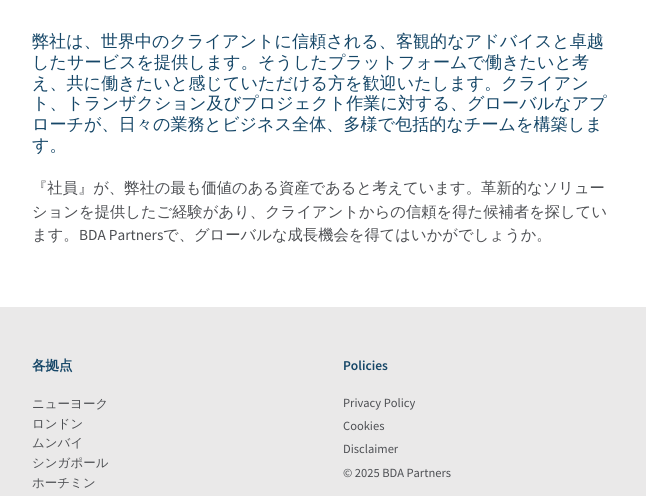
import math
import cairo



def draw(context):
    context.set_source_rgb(1, 1, 1)
    context.paint()
    context.set_source_rgb(234 / 255, 233 / 255, 233 / 255)
    context.rectangle(0, 307, 646, 189)
    context.fill()
    context.select_font_face("WenQuanYi Zen Hei Medium")
    context.set_font_size(17.1)
    context.set_source_rgb(21 / 255, 70 / 255, 103 / 255)
    context.move_to(32, 47)
    context.show_text("弊社は、世界中のクライアントに信頼される、客観的なアドバイスと卓越")
    context.move_to(32, 68)
    context.show_text("したサービスを提供します。そうしたプラットフォームで働きたいと考")
    context.move_to(32, 89)
    context.show_text("え、共に働きたいと感じていただける方を歓迎いたします。クライアン")
    context.move_to(32, 109)
    context.show_text("ト、トランザクション及びプロジェクト作業に対する、グローバルなアプ")
    context.move_to(32, 130)
    context.show_text("ローチが、日々の業務とビジネス全体、多様で包括的なチームを構築しま")
    context.move_to(32, 151)
    context.show_text("す。")
    context.set_font_size(15.3)
    context.set_source_rgb(77 / 255, 79 / 255, 83 / 255)
    context.move_to(32, 193)
    context.show_text("『社員』が、弊社の最も価値のある資産であると考えています。革新的なソリュー")
    context.move_to(32, 217)
    context.show_text("ションを提供したご経験があり、クライアントからの信頼を得た候補者を探してい")
    context.move_to(32, 240)
    context.show_text("ます。")
    context.select_font_face("Source Sans Pro")
    context.move_to(79, 240)
    context.show_text("BDA Partners")
    context.select_font_face("WenQuanYi Zen Hei Medium")
    context.move_to(163, 240)
    context.show_text("で、グローバルな成長機会を得てはいかがでしょうか。")
    context.select_font_face("WenQuanYi Zen Hei", cairo.FontSlant.NORMAL, cairo.FontWeight.BOLD)
    context.set_font_size(13.5)
    context.set_source_rgb(21 / 255, 70 / 255, 103 / 255)
    context.move_to(32, 370)
    context.show_text("各拠点")
    context.select_font_face("WenQuanYi Zen Hei Medium")
    context.set_font_size(12.5)
    context.set_source_rgb(77 / 255, 79 / 255, 83 / 255)
    context.move_to(32, 408)
    context.show_text("ニューヨーク")
    context.move_to(32, 428)
    context.show_text("ロンドン")
    context.move_to(32, 447)
    context.show_text("ムンバイ")
    context.move_to(32, 467)
    context.show_text("シンガポール")
    context.move_to(32, 487)
    context.show_text("ホーチミン")
    context.select_font_face("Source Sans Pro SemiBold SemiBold")
    context.set_font_size(13.5)
    context.set_source_rgb(21 / 255, 70 / 255, 103 / 255)
    context.move_to(343, 370)
    context.show_text("Policies")
    context.select_font_face("Source Sans Pro")
    context.set_font_size(12.5)
    context.set_source_rgb(77 / 255, 79 / 255, 83 / 255)
    context.move_to(343, 407)
    context.show_text("Privacy Policy")
    context.move_to(343, 430)
    context.show_text("Cookies")
    context.move_to(343, 453)
    context.show_text("Disclaimer")
    context.move_to(343, 477)
    context.show_text("© 2025 BDA Partners")


surface = cairo.ImageSurface(cairo.Format.RGB24, 646, 496)
context = cairo.Context(surface)
options = cairo.FontOptions()
options.set_hint_metrics(cairo.HintMetrics.OFF)
options.set_hint_style(cairo.HintStyle.NONE)
context.set_font_options(options)
context.set_miter_limit(4)
draw(context)
surface.write_to_png("out.png")
